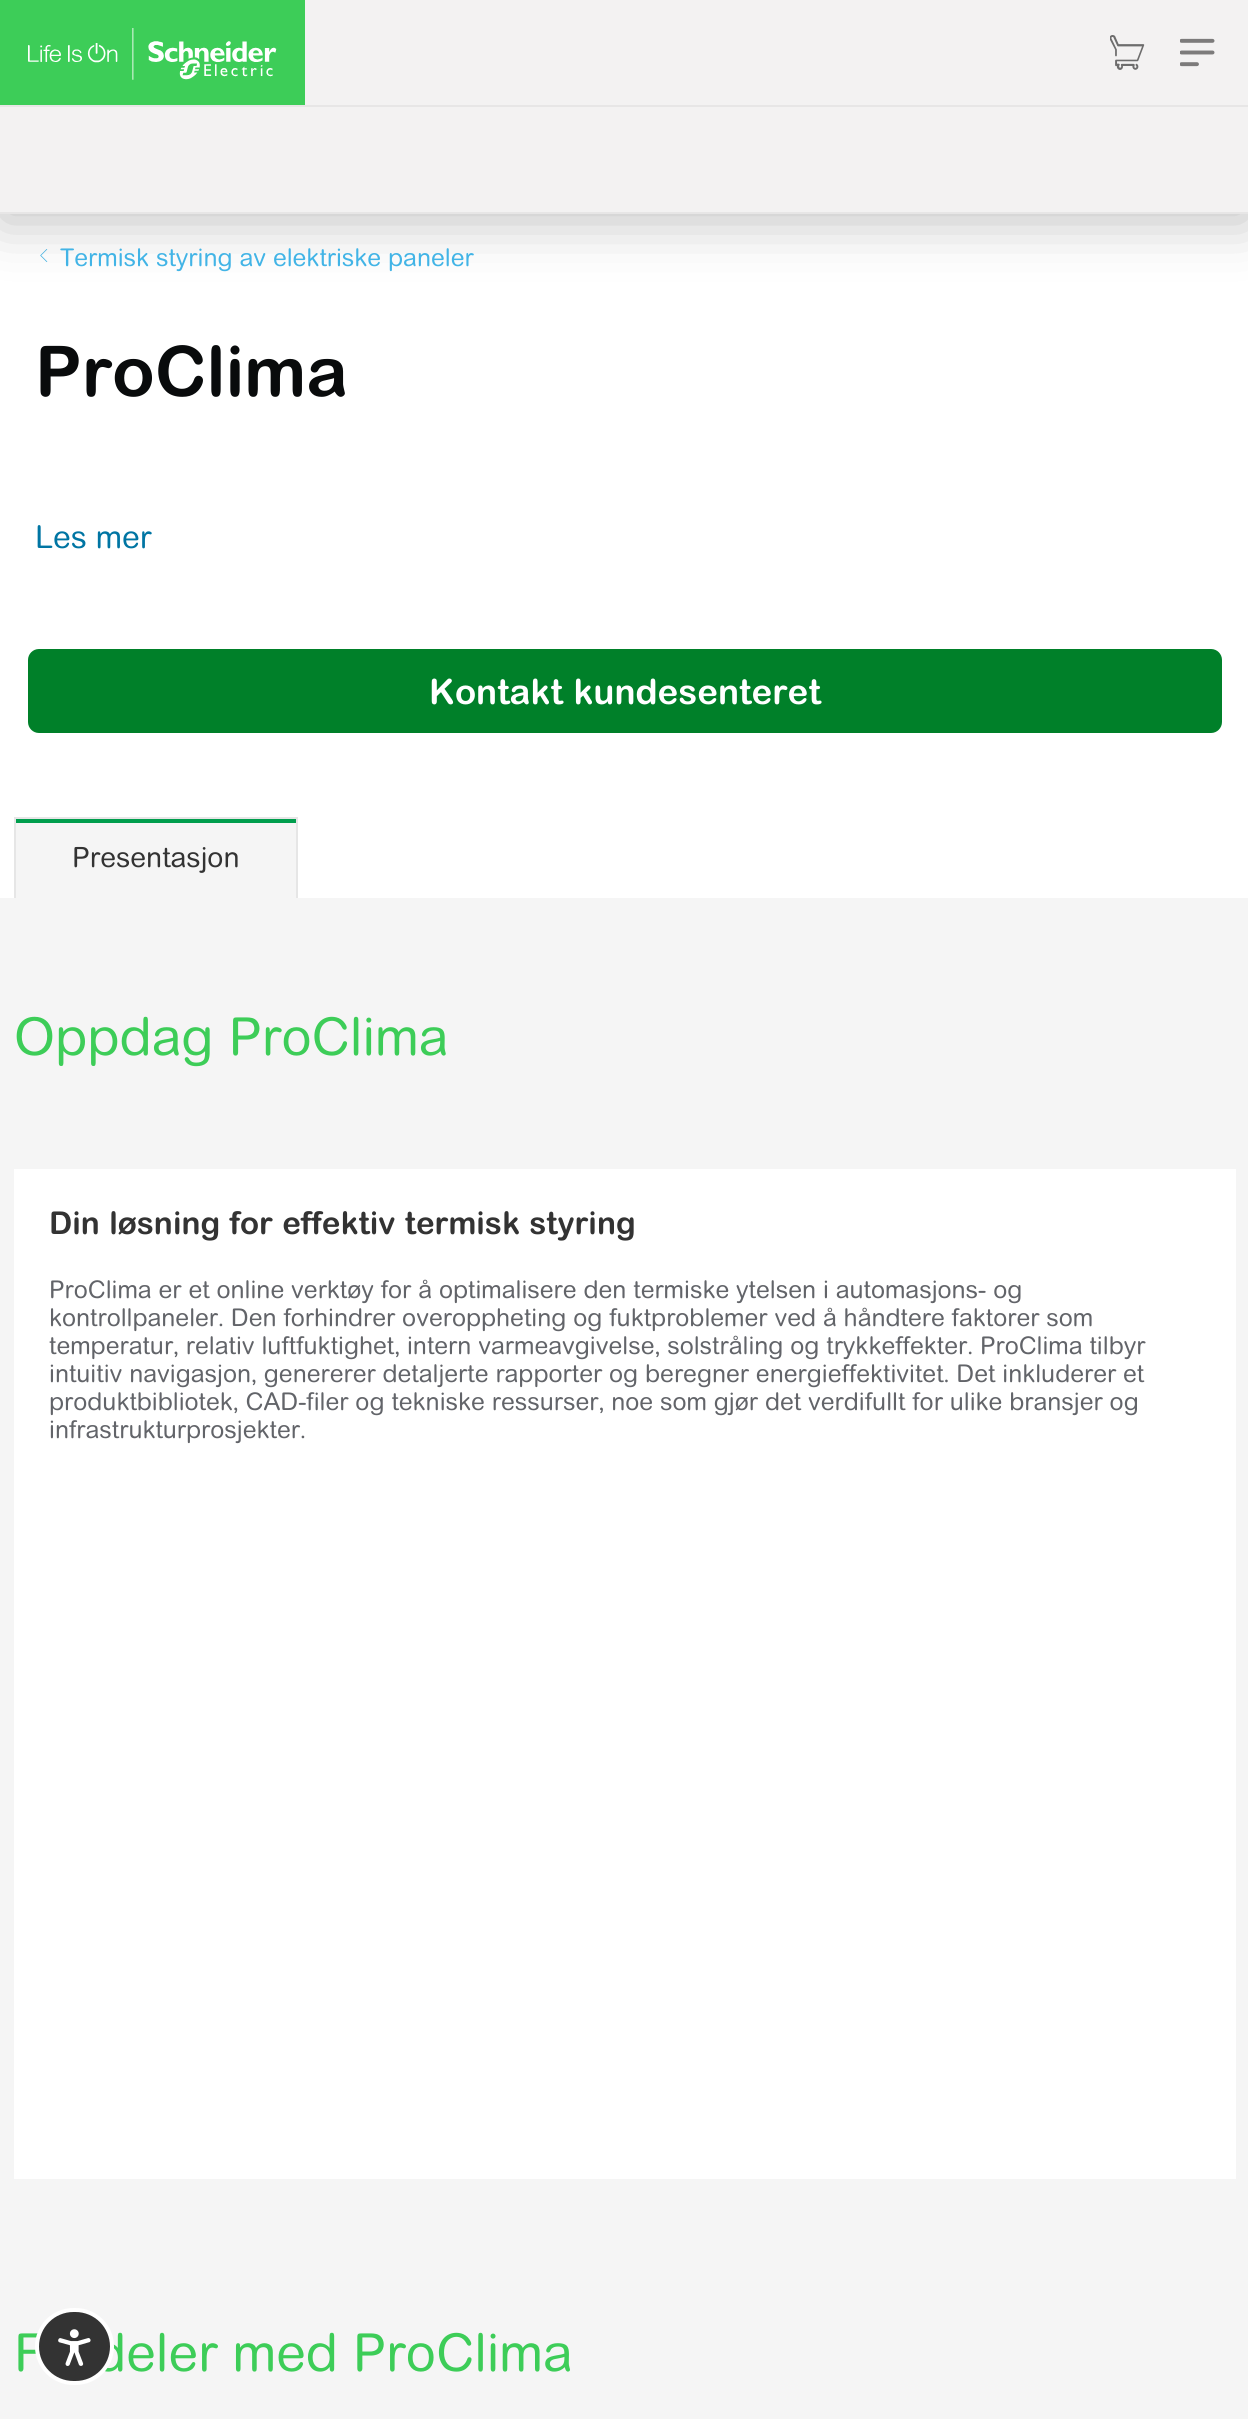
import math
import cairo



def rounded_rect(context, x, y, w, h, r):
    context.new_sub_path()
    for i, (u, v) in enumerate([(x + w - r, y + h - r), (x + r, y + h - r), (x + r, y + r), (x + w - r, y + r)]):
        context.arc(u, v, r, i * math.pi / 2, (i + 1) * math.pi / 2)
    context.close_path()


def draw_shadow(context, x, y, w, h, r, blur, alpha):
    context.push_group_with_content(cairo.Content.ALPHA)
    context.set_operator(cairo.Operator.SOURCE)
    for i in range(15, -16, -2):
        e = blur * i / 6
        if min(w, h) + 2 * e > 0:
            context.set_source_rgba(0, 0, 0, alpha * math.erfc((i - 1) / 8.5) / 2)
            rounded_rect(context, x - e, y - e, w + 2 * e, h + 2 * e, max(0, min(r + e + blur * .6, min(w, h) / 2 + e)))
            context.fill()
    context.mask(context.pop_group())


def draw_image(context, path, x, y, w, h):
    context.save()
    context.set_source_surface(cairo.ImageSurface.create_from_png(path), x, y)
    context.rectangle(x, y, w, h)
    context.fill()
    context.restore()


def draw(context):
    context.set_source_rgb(1, 1, 1)
    context.paint()
    draw_image(context, "images/4.png", 40, 249, 8, 13)
    context.set_source_rgb(0, 0, 0)
    draw_shadow(context, 0, 7, 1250, 214, 0, 28, 0.25)
    context.set_source_rgb(243 / 255, 242 / 255, 242 / 255)
    context.rectangle(0, 0, 1248, 212)
    context.fill()
    context.set_source_rgb(231 / 255, 230 / 255, 230 / 255)
    context.rectangle(0, 212, 1248, 2)
    context.fill()
    context.set_source_rgb(61 / 255, 205 / 255, 88 / 255)
    context.rectangle(0, 0, 305, 105)
    context.fill()
    draw_image(context, "images/1.png", 28, 28, 249, 52)
    draw_image(context, "images/2.png", 1110, 35, 35, 35)
    draw_image(context, "images/3.png", 1180, 38, 35, 29)
    context.set_source_rgb(231 / 255, 230 / 255, 230 / 255)
    context.rectangle(0, 105, 1248, 2)
    context.fill()
    context.set_source_rgb(0, 128 / 255, 41 / 255)
    rounded_rect(context, 28, 649, 1194, 84, 11)
    context.fill()
    context.set_source_rgb(245 / 255, 245 / 255, 245 / 255)
    context.rectangle(16, 823, 280, 75)
    context.fill()
    context.set_source_rgb(230 / 255, 230 / 255, 230 / 255)
    context.rectangle(14, 817, 284, 2)
    context.fill()
    context.rectangle(296, 817, 2, 81)
    context.fill()
    context.rectangle(14, 817, 2, 81)
    context.fill()
    context.set_source_rgb(0, 158 / 255, 77 / 255)
    context.rectangle(16, 819, 280, 4)
    context.fill()
    context.set_source_rgb(245 / 255, 245 / 255, 245 / 255)
    context.rectangle(0, 898, 1248, 1521)
    context.fill()
    context.set_source_rgb(1, 1, 1)
    context.rectangle(14, 1169, 1222, 1010)
    context.fill()
    context.select_font_face("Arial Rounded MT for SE")
    context.set_font_size(24.5)
    context.set_source_rgb(66 / 255, 180 / 255, 230 / 255)
    context.move_to(60, 266)
    context.show_text("Termisk styring av elektriske paneler")
    context.select_font_face("Arial Rounded MT for SE", cairo.FontSlant.NORMAL, cairo.FontWeight.BOLD)
    context.set_font_size(70)
    context.set_source_rgb(9 / 255, 11 / 255, 12 / 255)
    context.move_to(35, 396)
    context.show_text("ProClima")
    context.select_font_face("Arial Rounded MT for SE")
    context.set_font_size(31.5)
    context.set_source_rgb(0, 117 / 255, 163 / 255)
    context.move_to(35, 548)
    context.show_text("Les mer")
    context.select_font_face("Arial Rounded MT for SE", cairo.FontSlant.NORMAL, cairo.FontWeight.BOLD)
    context.set_font_size(35)
    context.set_source_rgb(1, 1, 1)
    context.move_to(429, 704)
    context.show_text("Kontakt kundesenteret")
    context.select_font_face("Arial Rounded MT for SE")
    context.set_font_size(28)
    context.set_source_rgb(51 / 255, 51 / 255, 51 / 255)
    context.move_to(72, 867)
    context.show_text("Presentasjon")
    context.set_font_size(52.5)
    context.set_source_rgb(61 / 255, 205 / 255, 88 / 255)
    context.move_to(14, 1055)
    context.show_text("Oppdag ProClima")
    context.select_font_face("Arial Rounded MT for SE", cairo.FontSlant.NORMAL, cairo.FontWeight.BOLD)
    context.set_font_size(31.5)
    context.set_source_rgb(51 / 255, 51 / 255, 51 / 255)
    context.move_to(49, 1234)
    context.show_text("Din løsning for effektiv termisk styring")
    context.select_font_face("Arial Rounded MT for SE")
    context.set_font_size(24.5)
    context.set_source_rgb(98 / 255, 100 / 255, 105 / 255)
    context.move_to(49, 1298)
    context.show_text("ProClima er et online verktøy for å optimalisere den termiske ytelsen i automasjons- og")
    context.move_to(49, 1326)
    context.show_text("kontrollpaneler. Den forhindrer overoppheting og fuktproblemer ved å håndtere faktorer som")
    context.move_to(49, 1354)
    context.show_text("temperatur, relativ luftfuktighet, intern varmeavgivelse, solstråling og trykkeffekter. ProClima tilbyr")
    context.move_to(49, 1382)
    context.show_text("intuitiv navigasjon, genererer detaljerte rapporter og beregner energieffektivitet. Det inkluderer et")
    context.move_to(49, 1410)
    context.show_text("produktbibliotek, CAD-filer og tekniske ressurser, noe som gjør det verdifullt for ulike bransjer og")
    context.move_to(49, 1438)
    context.show_text("infrastrukturprosjekter.")
    context.set_font_size(52.5)
    context.set_source_rgb(61 / 255, 205 / 255, 88 / 255)
    context.move_to(14, 2371)
    context.show_text("F")
    context.move_to(94, 2371)
    context.show_text("deler med ProClima")
    context.set_source_rgb(51 / 255, 51 / 255, 51 / 255)
    rounded_rect(context, 37, 2310, 75, 73, 36.5)
    context.fill_preserve()
    context.set_source_rgb(1, 1, 1)
    context.set_line_width(4)
    context.stroke()
    draw_image(context, "images/5.png", 58, 2329, 33, 37)


surface = cairo.ImageSurface(cairo.Format.RGB24, 1248, 2419)
context = cairo.Context(surface)
options = cairo.FontOptions()
options.set_hint_metrics(cairo.HintMetrics.OFF)
options.set_hint_style(cairo.HintStyle.NONE)
context.set_font_options(options)
context.set_miter_limit(4)
draw(context)
surface.write_to_png("out.png")
